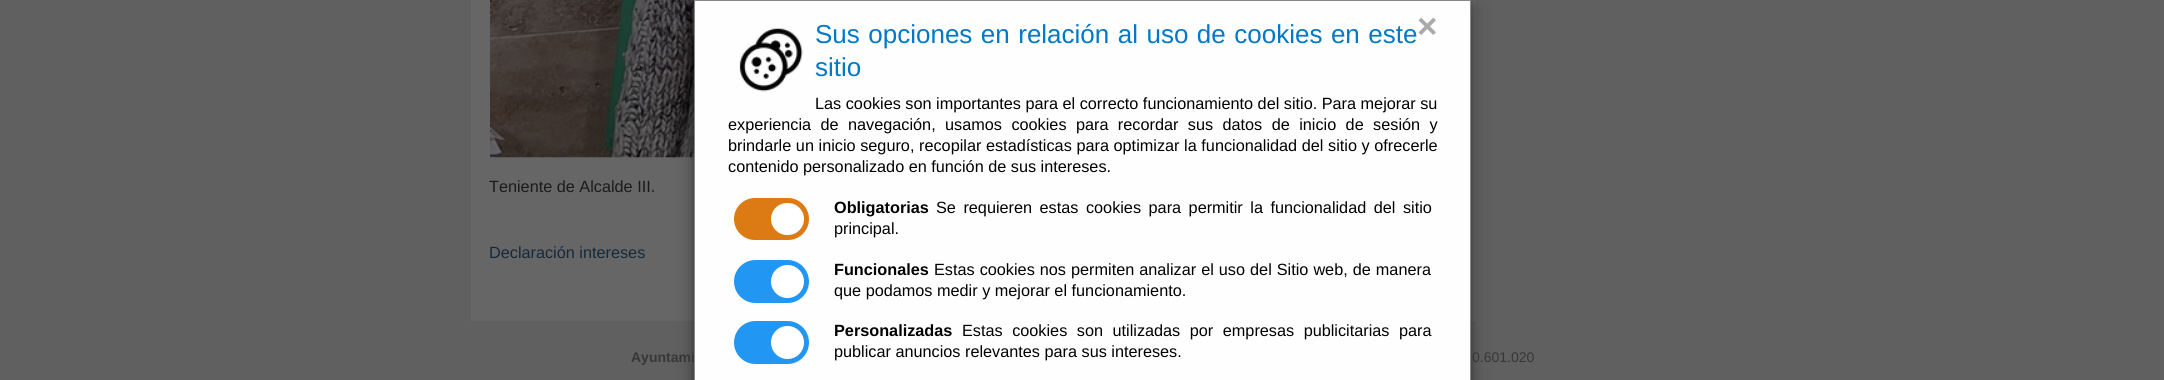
import math
import cairo



def draw_spaced(context, x, y, s, letter, word):
    context.move_to(x, y)
    for ch in s:
        context.show_text(ch)
        context.rel_move_to(letter + word * (ch == ' '), 0)


def rounded_rect(context, x, y, w, h, r):
    context.new_sub_path()
    for i, (u, v) in enumerate([(x + w - r, y + h - r), (x + r, y + h - r), (x + r, y + r), (x + w - r, y + r)]):
        context.arc(u, v, r, i * math.pi / 2, (i + 1) * math.pi / 2)
    context.close_path()


def draw_shadow(context, x, y, w, h, r, blur, alpha):
    context.push_group_with_content(cairo.Content.ALPHA)
    context.set_operator(cairo.Operator.SOURCE)
    for i in range(15, -16, -2):
        e = blur * i / 6
        if min(w, h) + 2 * e > 0:
            context.set_source_rgba(0, 0, 0, alpha * math.erfc((i - 1) / 8.5) / 2)
            rounded_rect(context, x - e, y - e, w + 2 * e, h + 2 * e, max(0, min(r + e + blur * .6, min(w, h) / 2 + e)))
            context.fill()
    context.mask(context.pop_group())


def draw_image(context, path, x, y, w, h):
    context.save()
    context.set_source_surface(cairo.ImageSurface.create_from_png(path), x, y)
    context.rectangle(x, y, w, h)
    context.fill()
    context.restore()


def draw(context):
    context.set_source_rgb(96 / 255, 96 / 255, 96 / 255)
    context.paint()
    context.set_source_rgb(102 / 255, 102 / 255, 102 / 255)
    context.rectangle(471, 0, 1005, 321)
    context.fill()
    draw_image(context, "images/2.png", 490, 0, 204, 158)
    context.set_source_rgb(0, 0, 0)
    draw_shadow(context, 694, 8, 777, 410, 0, 12.5, 0.19)
    draw_shadow(context, 694, 5, 777, 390, 0, 5, 0.4)
    context.set_source_rgb(254 / 255, 254 / 255, 254 / 255)
    context.rectangle(694.5, 0.5, 776, 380)
    context.fill_preserve()
    context.set_source_rgb(136 / 255, 136 / 255, 136 / 255)
    context.set_line_width(1)
    context.stroke()
    draw_image(context, "images/1.png", 739, 28, 64, 64)
    context.set_source_rgb(220 / 255, 123 / 255, 20 / 255)
    rounded_rect(context, 734, 198, 75, 42, 21)
    context.fill()
    context.set_source_rgb(1, 1, 1)
    rounded_rect(context, 771, 203, 33, 32, 16)
    context.fill()
    context.set_source_rgb(33 / 255, 150 / 255, 243 / 255)
    rounded_rect(context, 734, 260, 75, 43, 21.5)
    context.fill()
    context.set_source_rgb(1, 1, 1)
    context.arc(787.5, 281.5, 16.5, 0, 2 * math.pi)
    context.fill()
    context.set_source_rgb(33 / 255, 150 / 255, 243 / 255)
    rounded_rect(context, 734, 321, 75, 43, 21.5)
    context.fill()
    context.set_source_rgb(1, 1, 1)
    context.arc(787.5, 342.5, 16.5, 0, 2 * math.pi)
    context.fill()
    context.select_font_face("Liberation Sans")
    context.set_font_size(26)
    context.set_source_rgb(1 / 255, 120 / 255, 200 / 255)
    draw_spaced(context, 815, 43, "Sus opciones en relación al uso de cookies en este", 0, 1.25)
    context.move_to(815, 76)
    context.show_text("sitio")
    context.select_font_face("Liberation Sans", cairo.FontSlant.NORMAL, cairo.FontWeight.BOLD)
    context.set_font_size(35)
    context.set_source_rgb(170 / 255, 170 / 255, 170 / 255)
    context.move_to(1417, 38)
    context.show_text("×")
    context.select_font_face("Liberation Sans")
    context.set_font_size(16.25)
    context.set_source_rgb(0, 0, 0)
    context.move_to(815, 109)
    context.show_text("Las cookies son importantes para el correcto funcionamiento del sitio. Para mejorar su")
    draw_spaced(context, 728, 130, "experiencia de navegación, usamos cookies para recordar sus datos de inicio de sesión y", 0, 4.9)
    draw_spaced(context, 728, 151, "brindarle un inicio seguro, recopilar estadísticas para optimizar la funcionalidad del sitio y ofrecerle", 0, 0.1)
    context.move_to(728, 172)
    context.show_text("contenido personalizado en función de sus intereses.")
    context.select_font_face("Liberation Sans", cairo.FontSlant.NORMAL, cairo.FontWeight.BOLD)
    context.move_to(834, 213)
    context.show_text("Obligatorias")
    context.select_font_face("Liberation Sans")
    draw_spaced(context, 936, 213, "Se requieren estas cookies para permitir la funcionalidad del sitio", 0, 3)
    context.move_to(834, 234)
    context.show_text("principal.")
    context.select_font_face("Liberation Sans", cairo.FontSlant.NORMAL, cairo.FontWeight.BOLD)
    context.move_to(834, 275)
    context.show_text("Funcionales")
    context.select_font_face("Liberation Sans")
    draw_spaced(context, 934, 275, "Estas cookies nos permiten analizar el uso del Sitio web, de manera", 0, 0.5)
    context.move_to(834, 296)
    context.show_text("que podamos medir y mejorar el funcionamiento.")
    context.select_font_face("Liberation Sans", cairo.FontSlant.NORMAL, cairo.FontWeight.BOLD)
    context.move_to(834, 336)
    context.show_text("Personalizadas")
    context.select_font_face("Liberation Sans")
    draw_spaced(context, 962, 336, "Estas cookies son utilizadas por empresas publicitarias para", 0, 5)
    context.move_to(834, 357)
    context.show_text("publicar anuncios relevantes para sus intereses.")
    context.set_source_rgb(27 / 255, 27 / 255, 27 / 255)
    context.move_to(489, 192)
    context.show_text("Teniente de Alcalde III.")
    context.set_source_rgb(20 / 255, 41 / 255, 61 / 255)
    context.move_to(489, 258)
    context.show_text("Declaración intereses")
    context.select_font_face("Liberation Sans", cairo.FontSlant.NORMAL, cairo.FontWeight.BOLD)
    context.set_font_size(14)
    context.set_source_rgb(55 / 255, 55 / 255, 55 / 255)
    context.move_to(631, 362)
    context.show_text("Ayuntami")
    context.select_font_face("Liberation Sans")
    context.move_to(1472, 362)
    context.show_text("0.601.020")


surface = cairo.ImageSurface(cairo.Format.RGB24, 2164, 380)
context = cairo.Context(surface)
options = cairo.FontOptions()
options.set_hint_metrics(cairo.HintMetrics.OFF)
options.set_hint_style(cairo.HintStyle.NONE)
context.set_font_options(options)
context.set_miter_limit(4)
draw(context)
surface.write_to_png("out.png")
